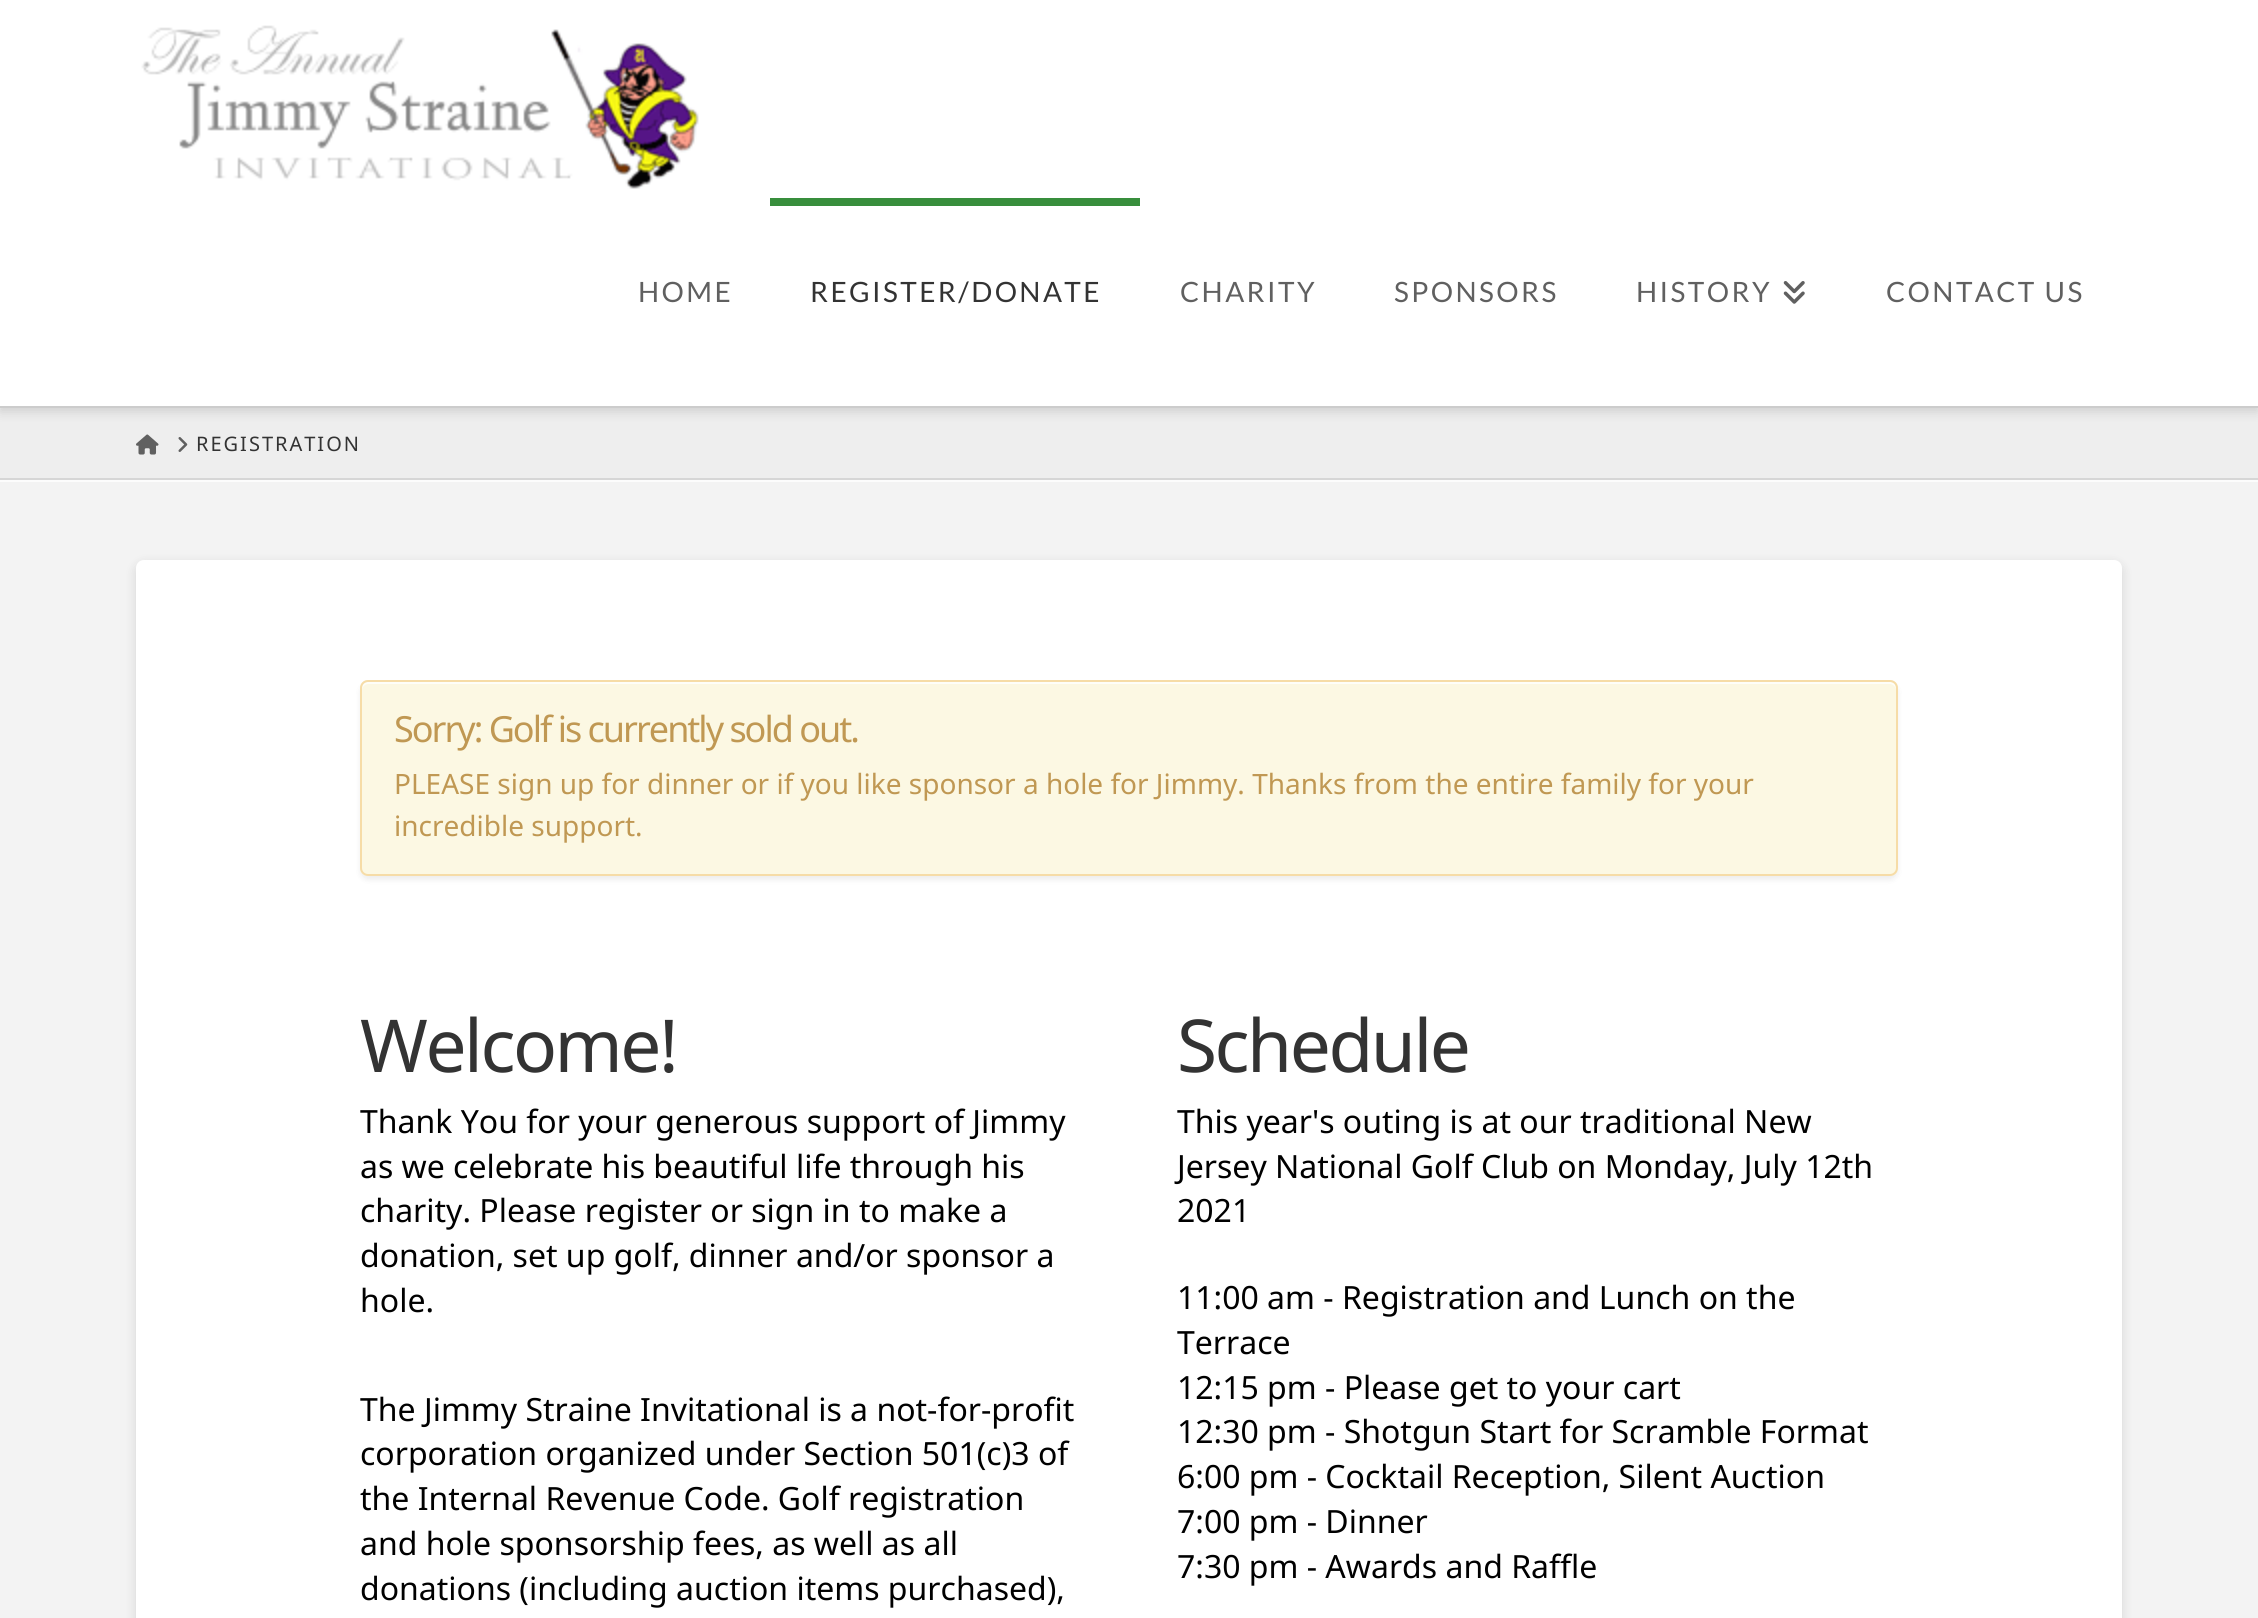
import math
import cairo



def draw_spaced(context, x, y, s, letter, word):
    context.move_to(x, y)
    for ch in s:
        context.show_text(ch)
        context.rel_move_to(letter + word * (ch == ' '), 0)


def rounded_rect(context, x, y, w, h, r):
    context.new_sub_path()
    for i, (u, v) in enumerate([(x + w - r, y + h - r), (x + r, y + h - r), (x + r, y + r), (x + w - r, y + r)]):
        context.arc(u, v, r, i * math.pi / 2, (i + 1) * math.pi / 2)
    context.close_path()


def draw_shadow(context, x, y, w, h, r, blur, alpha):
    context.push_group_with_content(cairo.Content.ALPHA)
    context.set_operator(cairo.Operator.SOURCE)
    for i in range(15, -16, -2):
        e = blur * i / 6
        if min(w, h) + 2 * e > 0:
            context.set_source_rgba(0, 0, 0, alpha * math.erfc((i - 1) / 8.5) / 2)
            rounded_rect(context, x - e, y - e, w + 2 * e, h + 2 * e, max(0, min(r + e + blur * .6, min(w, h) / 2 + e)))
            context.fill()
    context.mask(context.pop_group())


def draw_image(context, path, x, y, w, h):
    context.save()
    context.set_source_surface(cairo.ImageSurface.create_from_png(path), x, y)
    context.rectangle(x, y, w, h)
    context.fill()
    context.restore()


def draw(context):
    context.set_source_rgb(243 / 255, 243 / 255, 243 / 255)
    context.paint()
    context.set_source_rgb(238 / 255, 238 / 255, 238 / 255)
    context.rectangle(0, 408, 2258, 70)
    context.fill()
    context.set_source_rgb(0, 0, 0)
    draw_shadow(context, 0, 4, 2258, 408, 0, 5.5, 0.13)
    context.set_source_rgb(1, 1, 1)
    context.rectangle(0, 0, 2258, 406)
    context.fill()
    context.set_source_rgb(204 / 255, 204 / 255, 204 / 255)
    context.rectangle(0, 406, 2258, 2)
    context.fill()
    draw_image(context, "images/1.png", 141, 25, 558, 164)
    context.set_source_rgb(56 / 255, 142 / 255, 60 / 255)
    context.rectangle(770, 198, 370, 8)
    context.fill()
    draw_image(context, "images/2.png", 1783, 281, 22, 23)
    context.set_source_rgb(252 / 255, 252 / 255, 252 / 255)
    context.rectangle(0, 480, 2258, 2)
    context.fill()
    context.set_source_rgb(214 / 255, 214 / 255, 214 / 255)
    context.rectangle(0, 478, 2258, 2)
    context.fill()
    draw_image(context, "images/3.png", 136, 434, 23, 21)
    draw_image(context, "images/4.png", 178, 437, 10, 15)
    context.set_source_rgb(0, 0, 0)
    draw_shadow(context, 136, 564, 1986, 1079, 8, 5.5, 0.13)
    context.set_source_rgb(1, 1, 1)
    rounded_rect(context, 136, 560, 1986, 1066, 8)
    context.fill()
    context.set_source_rgb(0, 0, 0)
    draw_shadow(context, 360, 684, 1538, 196, 8, 3, 0.07)
    context.set_source_rgb(252 / 255, 248 / 255, 227 / 255)
    rounded_rect(context, 360, 680, 1538, 196, 8)
    context.fill()
    context.set_source_rgb(254 / 255, 254 / 255, 249 / 255)
    context.new_path()
    context.move_to(368, 684)
    context.line_to(1890, 684)
    context.curve_to(1893, 684, 1896, 687, 1896, 690)
    context.curve_to(1896, 686, 1895, 682, 1890, 682)
    context.line_to(368, 682)
    context.curve_to(363, 682, 362, 686, 362, 690)
    context.curve_to(362, 687, 365, 684, 368, 684)
    context.close_path()
    context.fill()
    rounded_rect(context, 361, 681, 1536, 194, 7)
    context.set_source_rgb(246 / 255, 220 / 255, 167 / 255)
    context.stroke()
    context.select_font_face("Lato")
    context.set_font_size(28)
    context.set_source_rgb(96 / 255, 96 / 255, 96 / 255)
    draw_spaced(context, 638, 302, "HOME", 2.4, 0)
    context.set_source_rgb(51 / 255, 51 / 255, 51 / 255)
    draw_spaced(context, 810, 302, "REGISTER/DONATE", 2.4, 0)
    context.set_source_rgb(96 / 255, 96 / 255, 96 / 255)
    draw_spaced(context, 1180, 302, "CHARITY", 2.4, 0)
    draw_spaced(context, 1394, 302, "SPONSORS", 2.4, 0)
    draw_spaced(context, 1636, 302, "HISTORY", 2.4, 0)
    draw_spaced(context, 1886, 302, "CONTACT US", 2.4, 0)
    context.select_font_face("Noto Sans")
    context.set_font_size(20)
    context.set_source_rgb(51 / 255, 51 / 255, 51 / 255)
    draw_spaced(context, 196, 451, "REGISTRATION", 2, 0)
    context.set_font_size(36)
    context.set_source_rgb(192 / 255, 152 / 255, 83 / 255)
    draw_spaced(context, 394, 742, "Sorry: Golf is currently sold out.", -2, 0)
    context.set_font_size(28)
    context.move_to(394, 794)
    context.show_text("PLEASE sign up for dinner or if you like sponsor a hole for Jimmy. Thanks from the entire family for your")
    context.move_to(394, 836)
    context.show_text("incredible support.")
    context.set_font_size(73)
    context.set_source_rgb(51 / 255, 51 / 255, 51 / 255)
    draw_spaced(context, 360, 1072, "Welcome!", -2.5, 0)
    context.set_font_size(32)
    context.set_source_rgb(0, 0, 0)
    context.move_to(360, 1133)
    context.show_text("Thank You for your generous support of Jimmy")
    context.move_to(360, 1178)
    context.show_text("as we celebrate his beautiful life through his")
    context.move_to(360, 1222)
    context.show_text("charity. Please register or sign in to make a")
    context.move_to(360, 1267)
    context.show_text("donation, set up golf, dinner and/or sponsor a")
    context.move_to(360, 1312)
    context.show_text("hole.")
    context.move_to(360, 1421)
    context.show_text("The Jimmy Straine Invitational is a not-for-profit")
    context.move_to(360, 1465)
    context.show_text("corporation organized under Section 501(c)3 of")
    context.move_to(360, 1510)
    context.show_text("the Internal Revenue Code. Golf registration")
    context.move_to(360, 1555)
    context.show_text("and hole sponsorship fees, as well as all")
    context.move_to(360, 1600)
    context.show_text("donations (including auction items purchased),")
    context.set_font_size(73)
    context.set_source_rgb(51 / 255, 51 / 255, 51 / 255)
    draw_spaced(context, 1177, 1072, "Schedule", -2.5, 0)
    context.set_font_size(32)
    context.set_source_rgb(0, 0, 0)
    context.move_to(1177, 1133)
    context.show_text("This year's outing is at our traditional New")
    context.move_to(1177, 1178)
    context.show_text("Jersey National Golf Club on Monday, July 12th")
    context.move_to(1177, 1222)
    context.show_text("2021")
    context.move_to(1177, 1309)
    context.show_text("11:00 am - Registration and Lunch on the")
    context.move_to(1177, 1354)
    context.show_text("Terrace")
    context.move_to(1177, 1399)
    context.show_text("12:15 pm - Please get to your cart")
    context.move_to(1177, 1443)
    context.show_text("12:30 pm - Shotgun Start for Scramble Format")
    context.move_to(1177, 1488)
    context.show_text("6:00 pm - Cocktail Reception, Silent Auction")
    context.move_to(1177, 1533)
    context.show_text("7:00 pm - Dinner")
    context.move_to(1177, 1578)
    context.show_text("7:30 pm - Awards and Raffle")


surface = cairo.ImageSurface(cairo.Format.RGB24, 2258, 1618)
context = cairo.Context(surface)
options = cairo.FontOptions()
options.set_hint_metrics(cairo.HintMetrics.OFF)
options.set_hint_style(cairo.HintStyle.NONE)
context.set_font_options(options)
context.set_miter_limit(4)
draw(context)
surface.write_to_png("out.png")
